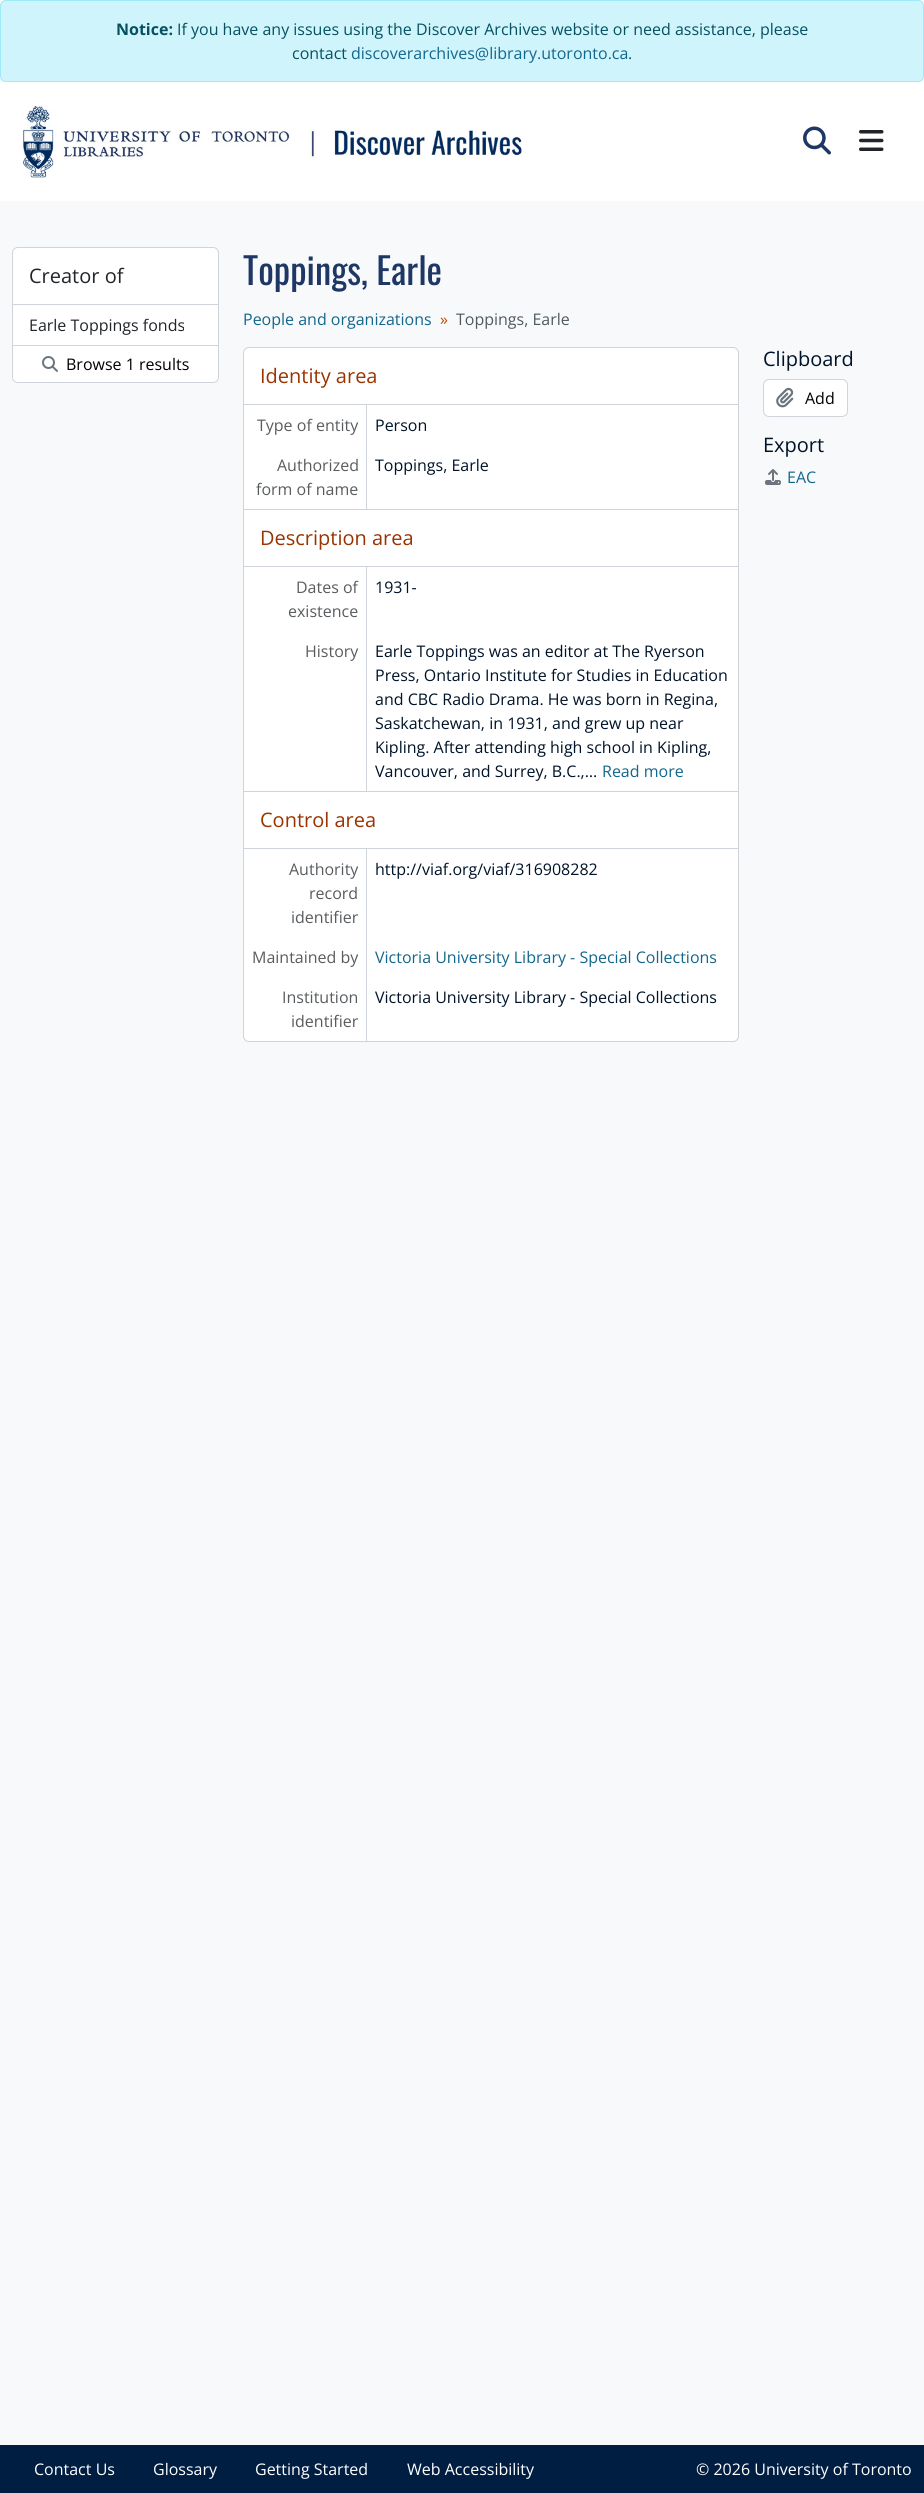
import math
import cairo



def rounded_rect(context, x, y, w, h, r):
    context.new_sub_path()
    for i, (u, v) in enumerate([(x + w - r, y + h - r), (x + r, y + h - r), (x + r, y + r), (x + w - r, y + r)]):
        context.arc(u, v, r, i * math.pi / 2, (i + 1) * math.pi / 2)
    context.close_path()


def draw_image(context, path, x, y, w, h):
    context.save()
    context.set_source_surface(cairo.ImageSurface.create_from_png(path), x, y)
    context.rectangle(x, y, w, h)
    context.fill()
    context.restore()


def draw(context):
    context.set_source_rgb(248 / 255, 249 / 255, 250 / 255)
    context.paint()
    context.set_source_rgb(207 / 255, 244 / 255, 252 / 255)
    rounded_rect(context, 0.5, 0.5, 923, 81, 5.5)
    context.fill_preserve()
    context.set_source_rgb(158 / 255, 234 / 255, 249 / 255)
    context.set_line_width(1)
    context.stroke()
    context.set_source_rgb(1, 1, 1)
    context.rectangle(0, 82, 924, 119)
    context.fill()
    draw_image(context, "images/1.png", 22, 105, 500, 73)
    draw_image(context, "images/2.png", 803, 126, 28, 29)
    draw_image(context, "images/3.png", 859, 130, 25, 21)
    rounded_rect(context, 12.5, 247.5, 206, 135, 5.5)
    context.fill_preserve()
    context.set_source_rgb(206 / 255, 212 / 255, 218 / 255)
    context.stroke()
    context.rectangle(13, 304, 205, 1)
    context.fill()
    context.rectangle(13, 345, 205, 1)
    context.fill()
    context.set_source_rgb(1, 1, 1)
    rounded_rect(context, 13, 346, 205, 36, 6)
    context.fill()
    draw_image(context, "images/4.png", 42, 356, 16, 16)
    rounded_rect(context, 243.5, 347.5, 495, 694, 5.5)
    context.fill_preserve()
    context.set_source_rgb(206 / 255, 212 / 255, 218 / 255)
    context.stroke()
    context.rectangle(244, 509, 494, 1)
    context.fill()
    context.rectangle(244, 404, 494, 1)
    context.fill()
    context.rectangle(366, 405, 1, 104)
    context.fill()
    context.rectangle(244, 791, 494, 1)
    context.fill()
    context.rectangle(244, 566, 494, 1)
    context.fill()
    context.rectangle(366, 567, 1, 224)
    context.fill()
    context.rectangle(244, 848, 494, 1)
    context.fill()
    context.rectangle(366, 849, 1, 192)
    context.fill()
    context.set_source_rgb(1, 1, 1)
    rounded_rect(context, 763.5, 379.5, 84, 37, 5.5)
    context.fill_preserve()
    context.set_source_rgb(206 / 255, 212 / 255, 218 / 255)
    context.stroke()
    draw_image(context, "images/5.png", 776, 387, 18, 21)
    draw_image(context, "images/6.png", 765, 469, 16, 16)
    context.set_source_rgb(0, 30 / 255, 66 / 255)
    context.rectangle(0, 2445, 924, 48)
    context.fill()
    context.select_font_face("Open Sans", cairo.FontSlant.NORMAL, cairo.FontWeight.BOLD)
    context.set_font_size(16)
    context.set_source_rgb(5 / 255, 81 / 255, 96 / 255)
    context.move_to(116, 35)
    context.show_text("Notice:")
    context.select_font_face("Open Sans")
    context.move_to(177, 35)
    context.show_text("If you have any issues using the Discover Archives website or need assistance, please")
    context.move_to(292, 59)
    context.show_text("contact")
    context.set_source_rgb(19 / 255, 102 / 255, 140 / 255)
    context.move_to(351, 59)
    context.show_text("discoverarchives@library.utoronto.ca")
    context.set_source_rgb(5 / 255, 81 / 255, 96 / 255)
    context.move_to(628, 59)
    context.show_text(".")
    context.set_font_size(20)
    context.set_source_rgb(33 / 255, 37 / 255, 41 / 255)
    context.move_to(29, 283)
    context.show_text("Creator of")
    context.set_font_size(16)
    context.move_to(29, 331)
    context.show_text("Earle Toppings fonds")
    context.set_source_rgb(0, 0, 0)
    context.move_to(66, 370)
    context.show_text("Browse 1 results")
    context.select_font_face("Oswald")
    context.set_font_size(36.75)
    context.set_source_rgb(30 / 255, 55 / 255, 101 / 255)
    context.move_to(243, 285)
    context.show_text("Toppings, Earle")
    context.select_font_face("Open Sans")
    context.set_font_size(16)
    context.set_source_rgb(19 / 255, 102 / 255, 140 / 255)
    context.move_to(243, 325)
    context.show_text("People and organizations")
    context.set_source_rgb(196 / 255, 78 / 255, 0)
    context.move_to(440, 325)
    context.show_text("»")
    context.set_source_rgb(80 / 255, 90 / 255, 98 / 255)
    context.move_to(456, 325)
    context.show_text("Toppings, Earle")
    context.set_font_size(20)
    context.set_source_rgb(153 / 255, 51 / 255, 0)
    context.move_to(260, 383)
    context.show_text("Identity area")
    context.set_font_size(16)
    context.set_source_rgb(89 / 255, 92 / 255, 95 / 255)
    context.move_to(257, 431)
    context.show_text("Type of entity")
    context.set_source_rgb(0, 19 / 255, 41 / 255)
    context.move_to(375, 431)
    context.show_text("Person")
    context.set_source_rgb(89 / 255, 92 / 255, 95 / 255)
    context.move_to(277, 471)
    context.show_text("Authorized")
    context.move_to(256, 495)
    context.show_text("form of name")
    context.set_source_rgb(0, 19 / 255, 41 / 255)
    context.move_to(375, 471)
    context.show_text("Toppings, Earle")
    context.set_font_size(20)
    context.set_source_rgb(153 / 255, 51 / 255, 0)
    context.move_to(260, 545)
    context.show_text("Description area")
    context.set_font_size(16)
    context.set_source_rgb(89 / 255, 92 / 255, 95 / 255)
    context.move_to(296, 593)
    context.show_text("Dates of")
    context.move_to(288, 617)
    context.show_text("existence")
    context.set_source_rgb(0, 19 / 255, 41 / 255)
    context.move_to(375, 593)
    context.show_text("1931-")
    context.set_source_rgb(89 / 255, 92 / 255, 95 / 255)
    context.move_to(305, 657)
    context.show_text("History")
    context.set_source_rgb(0, 19 / 255, 41 / 255)
    context.move_to(375, 657)
    context.show_text("Earle Toppings was an editor at The Ryerson")
    context.move_to(375, 681)
    context.show_text("Press, Ontario Institute for Studies in Education")
    context.move_to(375, 705)
    context.show_text("and CBC Radio Drama. He was born in Regina,")
    context.move_to(375, 729)
    context.show_text("Saskatchewan, in 1931, and grew up near")
    context.move_to(375, 753)
    context.show_text("Kipling. After attending high school in Kipling,")
    context.move_to(375, 777)
    context.show_text("Vancouver, and Surrey, B.C.,…")
    context.set_source_rgb(19 / 255, 102 / 255, 140 / 255)
    context.move_to(602, 777)
    context.show_text("Read more")
    context.set_font_size(20)
    context.set_source_rgb(153 / 255, 51 / 255, 0)
    context.move_to(260, 827)
    context.show_text("Control area")
    context.set_font_size(16)
    context.set_source_rgb(89 / 255, 92 / 255, 95 / 255)
    context.move_to(289, 875)
    context.show_text("Authority")
    context.move_to(309, 899)
    context.show_text("record")
    context.move_to(291, 923)
    context.show_text("identifier")
    context.set_source_rgb(0, 19 / 255, 41 / 255)
    context.move_to(375, 875)
    context.show_text("http://viaf.org/viaf/316908282")
    context.set_source_rgb(89 / 255, 92 / 255, 95 / 255)
    context.move_to(252, 963)
    context.show_text("Maintained by")
    context.set_source_rgb(19 / 255, 102 / 255, 140 / 255)
    context.move_to(375, 963)
    context.show_text("Victoria University Library - Special Collections")
    context.set_source_rgb(89 / 255, 92 / 255, 95 / 255)
    context.move_to(282, 1003)
    context.show_text("Institution")
    context.move_to(291, 1027)
    context.show_text("identifier")
    context.set_source_rgb(0, 19 / 255, 41 / 255)
    context.move_to(375, 1003)
    context.show_text("Victoria University Library - Special Collections")
    context.set_font_size(20)
    context.move_to(763, 366)
    context.show_text("Clipboard")
    context.set_font_size(16)
    context.set_source_rgb(0, 0, 0)
    context.move_to(805, 404)
    context.show_text("Add")
    context.set_font_size(20)
    context.set_source_rgb(0, 19 / 255, 41 / 255)
    context.move_to(763, 452)
    context.show_text("Export")
    context.set_font_size(16)
    context.set_source_rgb(19 / 255, 102 / 255, 140 / 255)
    context.move_to(787, 483)
    context.show_text("EAC")
    context.set_source_rgb(1, 1, 1)
    context.move_to(34, 2475)
    context.show_text("Contact Us")
    context.move_to(153, 2475)
    context.show_text("Glossary")
    context.move_to(255, 2475)
    context.show_text("Getting Started")
    context.move_to(407, 2475)
    context.show_text("Web Accessibility")
    context.move_to(696, 2475)
    context.show_text("© 2026 University of Toronto")


surface = cairo.ImageSurface(cairo.Format.RGB24, 924, 2493)
context = cairo.Context(surface)
options = cairo.FontOptions()
options.set_hint_metrics(cairo.HintMetrics.OFF)
options.set_hint_style(cairo.HintStyle.NONE)
context.set_font_options(options)
context.set_miter_limit(4)
draw(context)
surface.write_to_png("out.png")
